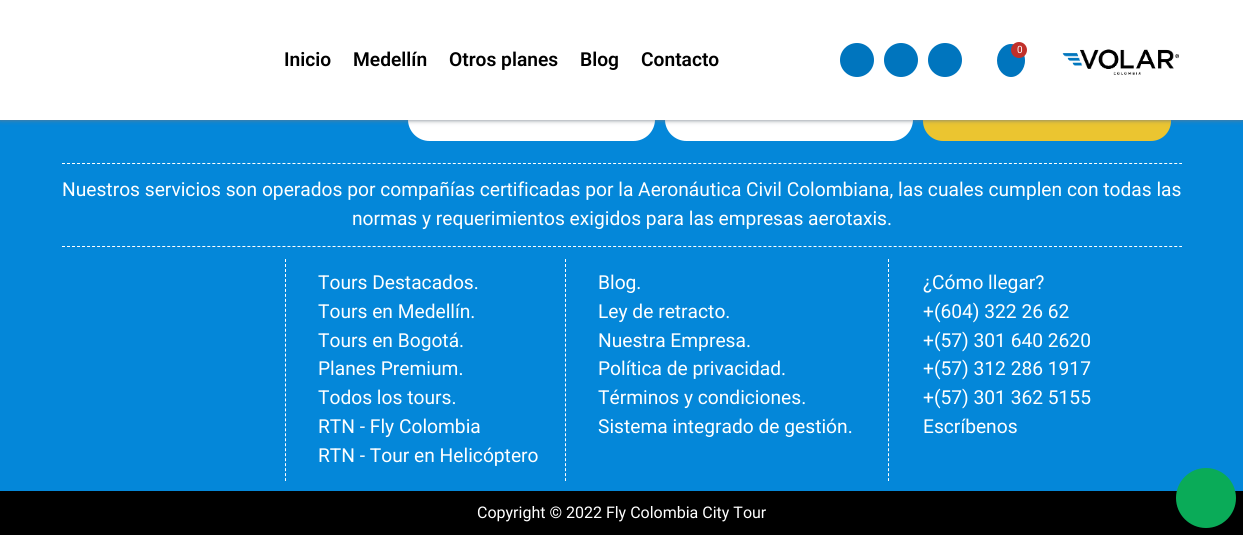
import math
import cairo



def rounded_rect(context, x, y, w, h, r):
    context.new_sub_path()
    for i, (u, v) in enumerate([(x + w - r, y + h - r), (x + r, y + h - r), (x + r, y + r), (x + w - r, y + r)]):
        context.arc(u, v, r, i * math.pi / 2, (i + 1) * math.pi / 2)
    context.close_path()


def draw_shadow(context, x, y, w, h, r, blur, alpha):
    context.push_group_with_content(cairo.Content.ALPHA)
    context.set_operator(cairo.Operator.SOURCE)
    for i in range(15, -16, -2):
        e = blur * i / 6
        if min(w, h) + 2 * e > 0:
            context.set_source_rgba(0, 0, 0, alpha * math.erfc((i - 1) / 8.5) / 2)
            rounded_rect(context, x - e, y - e, w + 2 * e, h + 2 * e, max(0, min(r + e + blur * .6, min(w, h) / 2 + e)))
            context.fill()
    context.mask(context.pop_group())


def draw_image(context, path, x, y, w, h):
    context.save()
    context.set_source_surface(cairo.ImageSurface.create_from_png(path), x, y)
    context.rectangle(x, y, w, h)
    context.fill()
    context.restore()


def draw(context):
    context.set_source_rgb(4 / 255, 135 / 255, 217 / 255)
    context.paint()
    context.set_source_rgb(1, 1, 1)
    rounded_rect(context, 408, 98, 247, 43, 21.5)
    context.fill()
    rounded_rect(context, 665, 98, 248, 43, 21.5)
    context.fill()
    context.set_source_rgb(235 / 255, 197 / 255, 48 / 255)
    rounded_rect(context, 923, 101, 248, 40, 20)
    context.fill()
    context.set_source_rgb(109 / 255, 120 / 255, 130 / 255)
    draw_shadow(context, 0, 0, 1243, 120, 0, 2.5, 1)
    context.set_source_rgb(1, 1, 1)
    context.rectangle(0, 0, 1243, 120)
    context.fill()
    context.set_source_rgb(0, 117 / 255, 190 / 255)
    context.arc(857, 60, 17, 0, 2 * math.pi)
    context.fill()
    context.arc(901, 60, 17, 0, 2 * math.pi)
    context.fill()
    context.arc(945, 60, 17, 0, 2 * math.pi)
    context.fill()
    context.new_path()
    context.move_to(1011, 44)
    context.curve_to(1018.5, 44, 1025, 51.5, 1025, 60.5)
    context.curve_to(1025, 69.5, 1018.5, 77, 1011, 77)
    context.curve_to(1003.5, 77, 997, 69.5, 997, 60.5)
    context.curve_to(997, 51.5, 1003.5, 44, 1011, 44)
    context.close_path()
    context.fill()
    context.set_source_rgb(192 / 255, 48 / 255, 42 / 255)
    context.arc(1019, 50, 8, 0, 2 * math.pi)
    context.fill()
    draw_image(context, "images/1.png", 1062, 49, 117, 26)
    context.new_path()
    context.move_to(62, 163.5)
    context.line_to(1182, 163.5)
    context.set_source_rgb(1, 1, 1)
    context.set_line_width(1)
    context.set_dash([3, 2.01])
    context.stroke()
    context.new_path()
    context.move_to(62, 246.5)
    context.line_to(1182, 246.5)
    context.stroke()
    context.new_path()
    context.move_to(285.5, 259)
    context.line_to(285.5, 481)
    context.set_dash([3, 1.98])
    context.stroke()
    context.new_path()
    context.move_to(565.5, 259)
    context.line_to(565.5, 481)
    context.stroke()
    context.new_path()
    context.move_to(888.5, 259)
    context.line_to(888.5, 481)
    context.stroke()
    context.set_source_rgb(0, 0, 0)
    context.rectangle(0, 491, 1243, 44)
    context.fill()
    context.set_source_rgb(10 / 255, 171 / 255, 88 / 255)
    context.arc(1206, 498, 30, 0, 2 * math.pi)
    context.fill()
    context.select_font_face("Roboto SemiBold")
    context.set_font_size(19.2)
    context.set_source_rgb(0, 0, 0)
    context.move_to(284, 66)
    context.show_text("Inicio")
    context.move_to(353, 66)
    context.show_text("Medellín")
    context.move_to(449, 66)
    context.show_text("Otros planes")
    context.move_to(580, 66)
    context.show_text("Blog")
    context.move_to(641, 66)
    context.show_text("Contacto")
    context.select_font_face("Roboto")
    context.set_font_size(10)
    context.set_source_rgb(1, 1, 1)
    context.move_to(1017, 53)
    context.show_text("0")
    context.set_font_size(19.2)
    context.move_to(62, 196)
    context.show_text("Nuestros servicios son operados por compañías certificadas por la Aeronáutica Civil Colombiana, las cuales cumplen con todas las")
    context.move_to(352, 225)
    context.show_text("normas y requerimientos exigidos para las empresas aerotaxis.")
    context.move_to(318, 289)
    context.show_text("Tours Destacados.")
    context.move_to(318, 318)
    context.show_text("Tours en Medellín.")
    context.move_to(318, 347)
    context.show_text("Tours en Bogotá.")
    context.move_to(318, 375)
    context.show_text("Planes Premium.")
    context.move_to(318, 404)
    context.show_text("Todos los tours.")
    context.move_to(318, 433)
    context.show_text("RTN - Fly Colombia")
    context.move_to(318, 462)
    context.show_text("RTN - Tour en Helicóptero")
    context.move_to(598, 289)
    context.show_text("Blog.")
    context.move_to(598, 318)
    context.show_text("Ley de retracto.")
    context.move_to(598, 347)
    context.show_text("Nuestra Empresa.")
    context.move_to(598, 375)
    context.show_text("Política de privacidad.")
    context.move_to(598, 404)
    context.show_text("Términos y condiciones.")
    context.move_to(598, 433)
    context.show_text("Sistema integrado de gestión.")
    context.move_to(923, 289)
    context.show_text("¿Cómo llegar?")
    context.move_to(923, 318)
    context.show_text("+(604) 322 26 62")
    context.move_to(923, 347)
    context.show_text("+(57) 301 640 2620")
    context.move_to(923, 375)
    context.show_text("+(57) 312 286 1917")
    context.move_to(923, 404)
    context.show_text("+(57) 301 362 5155")
    context.move_to(923, 433)
    context.show_text("Escríbenos")
    context.set_font_size(16)
    context.move_to(477, 518)
    context.show_text("Copyright © 2022 Fly Colombia City Tour")


surface = cairo.ImageSurface(cairo.Format.RGB24, 1243, 535)
context = cairo.Context(surface)
options = cairo.FontOptions()
options.set_hint_metrics(cairo.HintMetrics.OFF)
options.set_hint_style(cairo.HintStyle.NONE)
context.set_font_options(options)
context.set_miter_limit(4)
draw(context)
surface.write_to_png("out.png")
